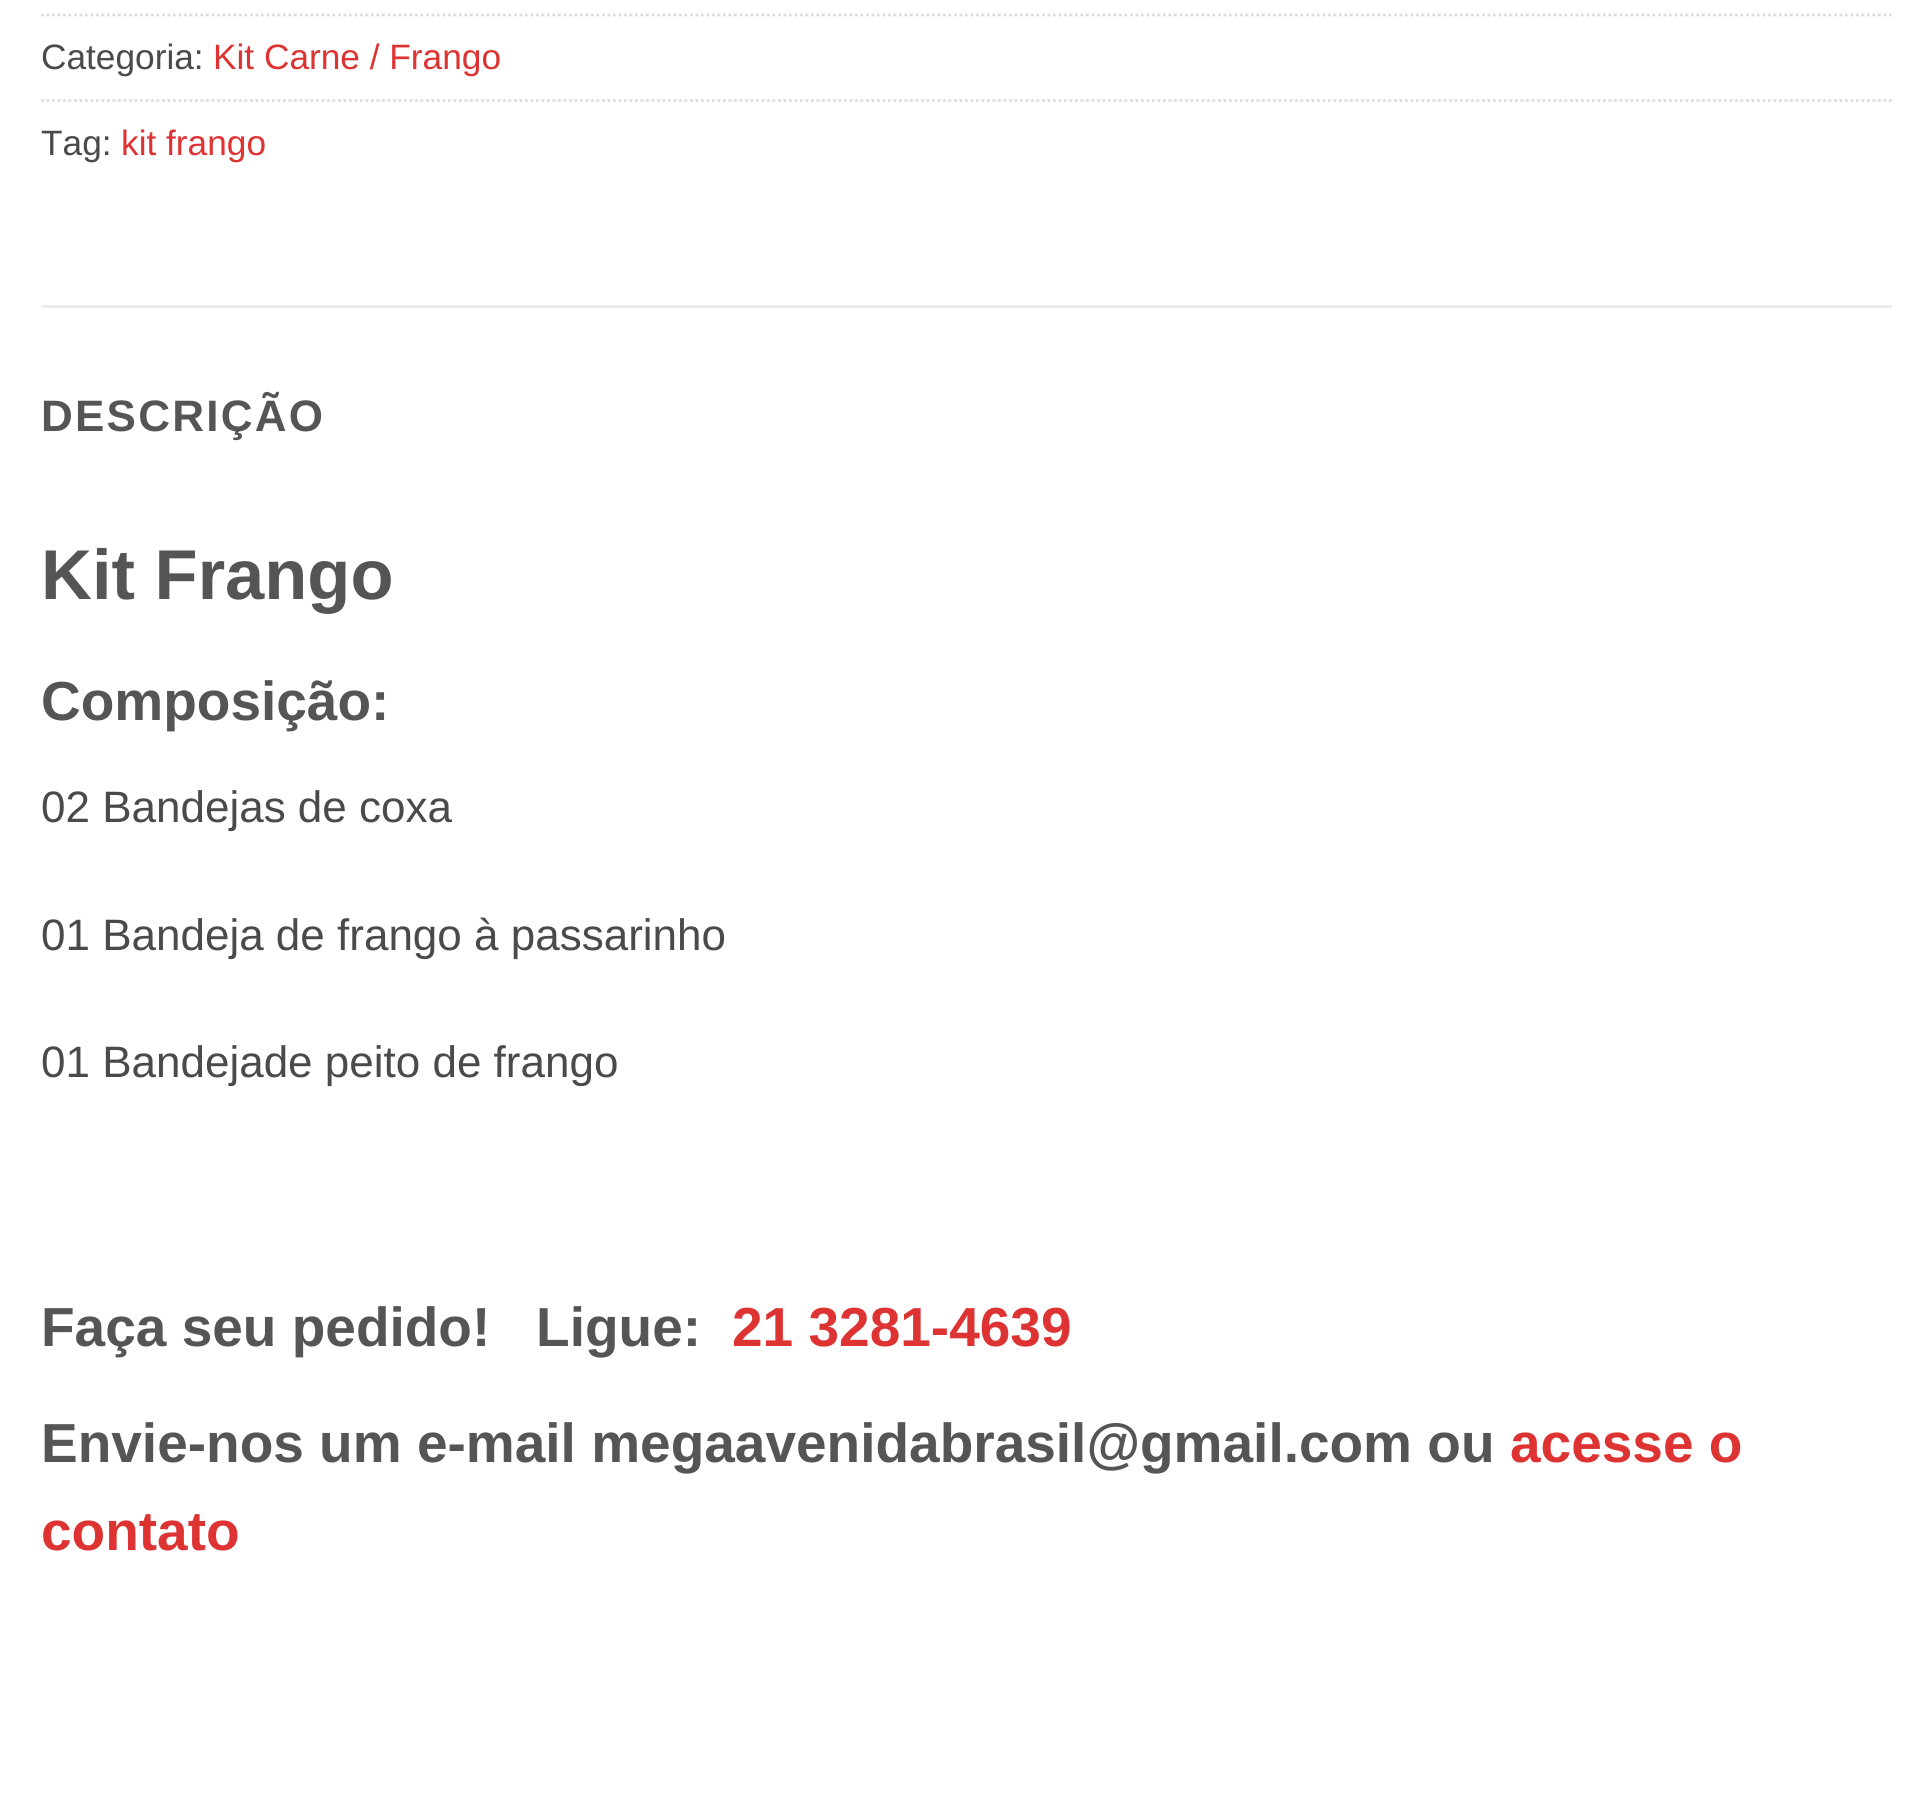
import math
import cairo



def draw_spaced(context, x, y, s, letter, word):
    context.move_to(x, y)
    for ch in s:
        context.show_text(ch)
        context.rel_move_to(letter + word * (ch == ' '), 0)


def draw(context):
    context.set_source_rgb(1, 1, 1)
    context.paint()
    context.new_path()
    context.move_to(41, 15)
    context.line_to(1892, 15)
    context.set_source_rgb(221 / 255, 221 / 255, 221 / 255)
    context.set_line_width(2.8)
    context.set_dash([2.75, 2.75])
    context.stroke()
    context.new_path()
    context.move_to(41, 100.5)
    context.line_to(1892, 100.5)
    context.stroke()
    context.set_source_rgb(236 / 255, 236 / 255, 236 / 255)
    context.rectangle(41, 305, 1851, 3)
    context.fill()
    context.select_font_face("Liberation Sans")
    context.set_font_size(35.25)
    context.set_source_rgb(74 / 255, 74 / 255, 74 / 255)
    context.move_to(41, 69)
    context.show_text("Categoria:")
    context.set_source_rgb(221 / 255, 51 / 255, 51 / 255)
    context.move_to(213, 69)
    context.show_text("Kit Carne / Frango")
    context.set_source_rgb(74 / 255, 74 / 255, 74 / 255)
    context.move_to(41, 155)
    context.show_text("Tag:")
    context.set_source_rgb(221 / 255, 51 / 255, 51 / 255)
    context.move_to(121, 155)
    context.show_text("kit frango")
    context.select_font_face("Liberation Sans", cairo.FontSlant.NORMAL, cairo.FontWeight.BOLD)
    context.set_font_size(44)
    context.set_source_rgb(85 / 255, 85 / 255, 85 / 255)
    draw_spaced(context, 41, 431, "DESCRIÇÃO", 2.25, 0)
    context.set_font_size(70.5)
    context.move_to(41, 599)
    context.show_text("Kit Frango")
    context.set_font_size(55)
    context.move_to(41, 720)
    context.show_text("Composição:")
    context.select_font_face("Liberation Sans")
    context.set_font_size(44)
    context.set_source_rgb(74 / 255, 74 / 255, 74 / 255)
    context.move_to(41, 822)
    context.show_text("02 Bandejas de coxa")
    context.move_to(41, 950)
    context.show_text("01 Bandeja de frango à passarinho")
    context.move_to(41, 1077)
    context.show_text("01 Bandejade peito de frango")
    context.select_font_face("Liberation Sans", cairo.FontSlant.NORMAL, cairo.FontWeight.BOLD)
    context.set_font_size(55)
    context.set_source_rgb(85 / 255, 85 / 255, 85 / 255)
    context.move_to(41, 1346)
    context.show_text("Faça seu pedido!   Ligue:")
    context.set_source_rgb(221 / 255, 51 / 255, 51 / 255)
    context.move_to(732, 1346)
    context.show_text("21 3281-4639")
    context.set_source_rgb(85 / 255, 85 / 255, 85 / 255)
    context.move_to(41, 1462)
    context.show_text("Envie-nos um e-mail megaavenidabrasil@gmail.com ou")
    context.set_source_rgb(221 / 255, 51 / 255, 51 / 255)
    context.move_to(1510, 1462)
    context.show_text("acesse o")
    context.move_to(41, 1550)
    context.show_text("contato")


surface = cairo.ImageSurface(cairo.Format.RGB24, 1931, 1797)
context = cairo.Context(surface)
options = cairo.FontOptions()
options.set_hint_metrics(cairo.HintMetrics.OFF)
options.set_hint_style(cairo.HintStyle.NONE)
context.set_font_options(options)
context.set_miter_limit(4)
draw(context)
surface.write_to_png("out.png")
